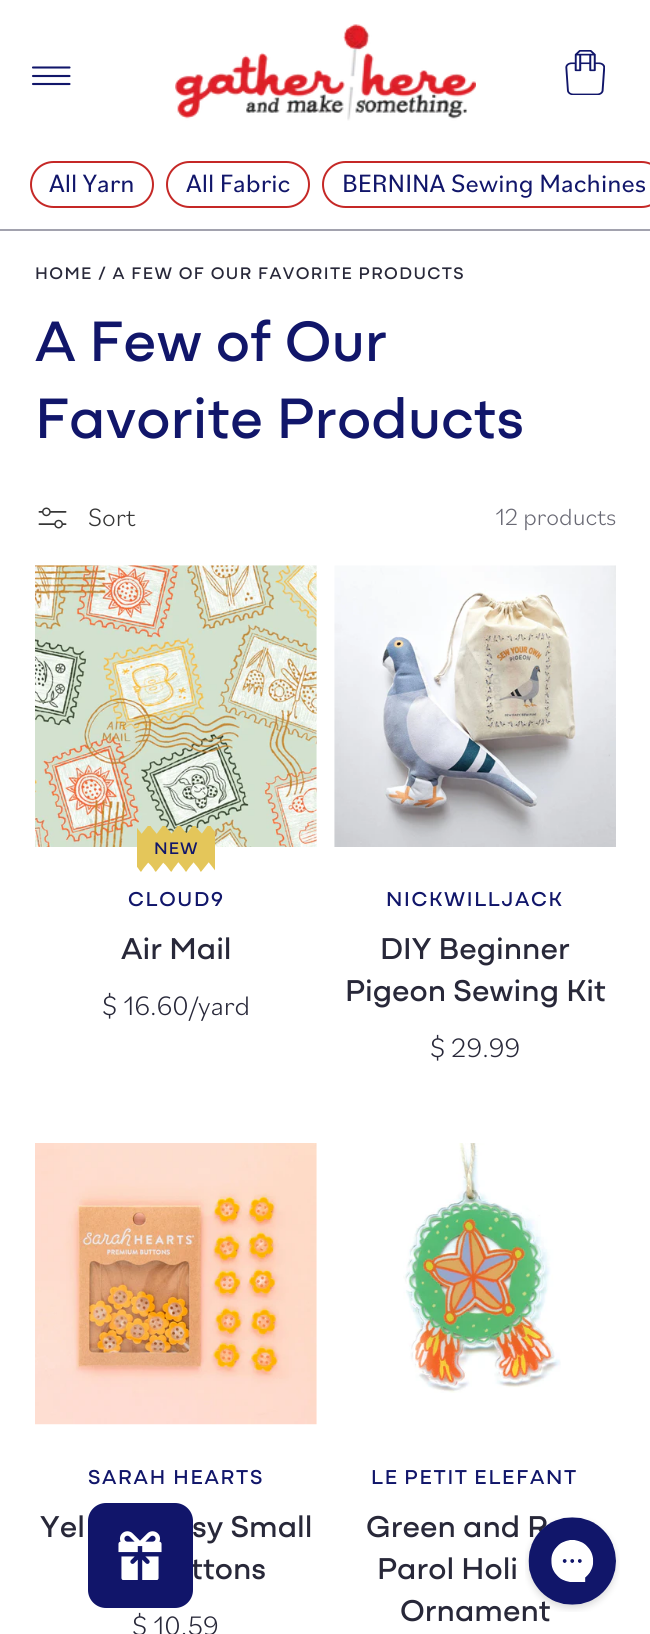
import math
import cairo



def draw_spaced(context, x, y, s, letter, word):
    context.move_to(x, y)
    for ch in s:
        context.show_text(ch)
        context.rel_move_to(letter + word * (ch == ' '), 0)


def rounded_rect(context, x, y, w, h, r):
    context.new_sub_path()
    for i, (u, v) in enumerate([(x + w - r, y + h - r), (x + r, y + h - r), (x + r, y + r), (x + w - r, y + r)]):
        context.arc(u, v, r, i * math.pi / 2, (i + 1) * math.pi / 2)
    context.close_path()


def draw_image(context, path, x, y, w, h):
    context.save()
    context.set_source_surface(cairo.ImageSurface.create_from_png(path), x, y)
    context.rectangle(x, y, w, h)
    context.fill()
    context.restore()


def draw(context):
    context.set_source_rgb(1, 1, 1)
    context.paint()
    context.set_source_rgb(162 / 255, 162 / 255, 174 / 255)
    context.rectangle(0, 229, 650, 2)
    context.fill()
    context.new_path()
    context.move_to(33, 67.5)
    context.line_to(69.5, 67.5)
    context.move_to(33, 76)
    context.line_to(69.5, 76)
    context.move_to(33, 84)
    context.line_to(69.5, 84)
    context.set_source_rgb(17 / 255, 22 / 255, 106 / 255)
    context.set_line_width(2.1)
    context.set_line_cap(cairo.LineCap.ROUND)
    context.stroke()
    draw_image(context, "images/1.png", 175, 24, 301, 97)
    draw_image(context, "images/2.png", 565, 50, 40, 45)
    rounded_rect(context, 31, 162, 122, 45, 22.5)
    context.set_source_rgb(197 / 255, 40 / 255, 38 / 255)
    context.set_line_width(2)
    context.set_line_cap(cairo.LineCap.BUTT)
    context.stroke()
    rounded_rect(context, 167, 162, 142, 45, 22.5)
    context.stroke()
    rounded_rect(context, 323, 162, 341, 45, 22.5)
    context.stroke()
    draw_image(context, "images/3.png", 38, 507, 29, 22)
    draw_image(context, "images/4.png", 35, 565, 282, 282)
    draw_image(context, "images/5.png", 137, 826, 78, 46)
    draw_image(context, "images/6.png", 334, 565, 282, 282)
    draw_image(context, "images/7.png", 35, 1143, 282, 282)
    draw_image(context, "images/8.png", 403, 1143, 158, 250)
    context.select_font_face("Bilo")
    context.set_font_size(26.25)
    context.set_source_rgb(17 / 255, 22 / 255, 106 / 255)
    context.move_to(49, 192)
    context.show_text("All Yarn")
    context.move_to(186, 192)
    context.show_text("All Fabric")
    context.move_to(342, 192)
    context.show_text("BERNINA Sewing Machines")
    context.select_font_face("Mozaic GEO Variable")
    context.set_font_size(17.5)
    context.set_source_rgb(40 / 255, 40 / 255, 57 / 255)
    draw_spaced(context, 35, 279, "HOME / A FEW OF OUR FAVORITE PRODUCTS", 1.4, 0)
    context.set_font_size(59.5)
    context.set_source_rgb(17 / 255, 22 / 255, 106 / 255)
    context.move_to(35, 361)
    context.show_text("A Few of Our")
    context.move_to(35, 438)
    context.show_text("Favorite Products")
    context.select_font_face("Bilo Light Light")
    context.set_font_size(26.25)
    context.set_source_rgb(54 / 255, 54 / 255, 54 / 255)
    context.move_to(88, 526)
    context.show_text("Sort")
    context.set_font_size(24.5)
    context.set_source_rgb(105 / 255, 105 / 255, 116 / 255)
    context.move_to(495, 525)
    context.show_text("12 products")
    context.select_font_face("Mozaic GEO Variable")
    context.set_font_size(17.5)
    context.set_source_rgb(17 / 255, 22 / 255, 106 / 255)
    draw_spaced(context, 154, 854, "NEW", 1, 0)
    context.set_font_size(21)
    draw_spaced(context, 128, 906, "CLOUD9", 1.7, 0)
    context.set_font_size(31.5)
    context.set_source_rgb(40 / 255, 40 / 255, 57 / 255)
    context.move_to(121, 959)
    context.show_text("Air Mail")
    context.select_font_face("Bilo Light Light")
    context.set_font_size(28)
    context.move_to(102, 1015)
    context.show_text("$ 16.60/yard")
    context.select_font_face("Mozaic GEO Variable")
    context.set_font_size(21)
    context.set_source_rgb(17 / 255, 22 / 255, 106 / 255)
    draw_spaced(context, 386, 906, "NICKWILLJACK", 1.7, 0)
    context.set_font_size(31.5)
    context.set_source_rgb(40 / 255, 40 / 255, 57 / 255)
    context.move_to(380, 959)
    context.show_text("DIY Beginner")
    context.move_to(345, 1001)
    context.show_text("Pigeon Sewing Kit")
    context.select_font_face("Bilo Light Light")
    context.set_font_size(28)
    context.move_to(430, 1057)
    context.show_text("$ 29.99")
    context.select_font_face("Mozaic GEO Variable")
    context.set_font_size(21)
    context.set_source_rgb(17 / 255, 22 / 255, 106 / 255)
    draw_spaced(context, 88, 1484, "SARAH HEARTS", 1.7, 0)
    context.set_font_size(31.5)
    context.set_source_rgb(40 / 255, 40 / 255, 57 / 255)
    context.move_to(40, 1537)
    context.show_text("Yel")
    context.move_to(192, 1537)
    context.show_text("sy Small")
    context.move_to(191, 1579)
    context.show_text("ttons")
    context.select_font_face("Bilo Light Light")
    context.set_font_size(28)
    context.move_to(132, 1635)
    context.show_text("$ 10.59")
    context.select_font_face("Mozaic GEO Variable")
    context.set_font_size(21)
    context.set_source_rgb(17 / 255, 22 / 255, 106 / 255)
    draw_spaced(context, 371, 1484, "LE PETIT ELEFANT", 1.7, -1)
    context.set_font_size(31.5)
    context.set_source_rgb(40 / 255, 40 / 255, 57 / 255)
    context.move_to(366, 1537)
    context.show_text("Green and R")
    context.move_to(377, 1579)
    context.show_text("Parol Holi")
    context.move_to(400, 1621)
    context.show_text("Ornament")
    context.set_source_rgb(17 / 255, 21 / 255, 106 / 255)
    rounded_rect(context, 88, 1503, 105, 105, 18)
    context.fill()
    draw_image(context, "images/9.png", 118, 1531, 44, 49)
    draw_image(context, "images/10.png", 525, 1517, 95, 95)


surface = cairo.ImageSurface(cairo.Format.RGB24, 650, 1634)
context = cairo.Context(surface)
options = cairo.FontOptions()
options.set_hint_metrics(cairo.HintMetrics.OFF)
options.set_hint_style(cairo.HintStyle.NONE)
context.set_font_options(options)
context.set_miter_limit(4)
draw(context)
surface.write_to_png("out.png")
